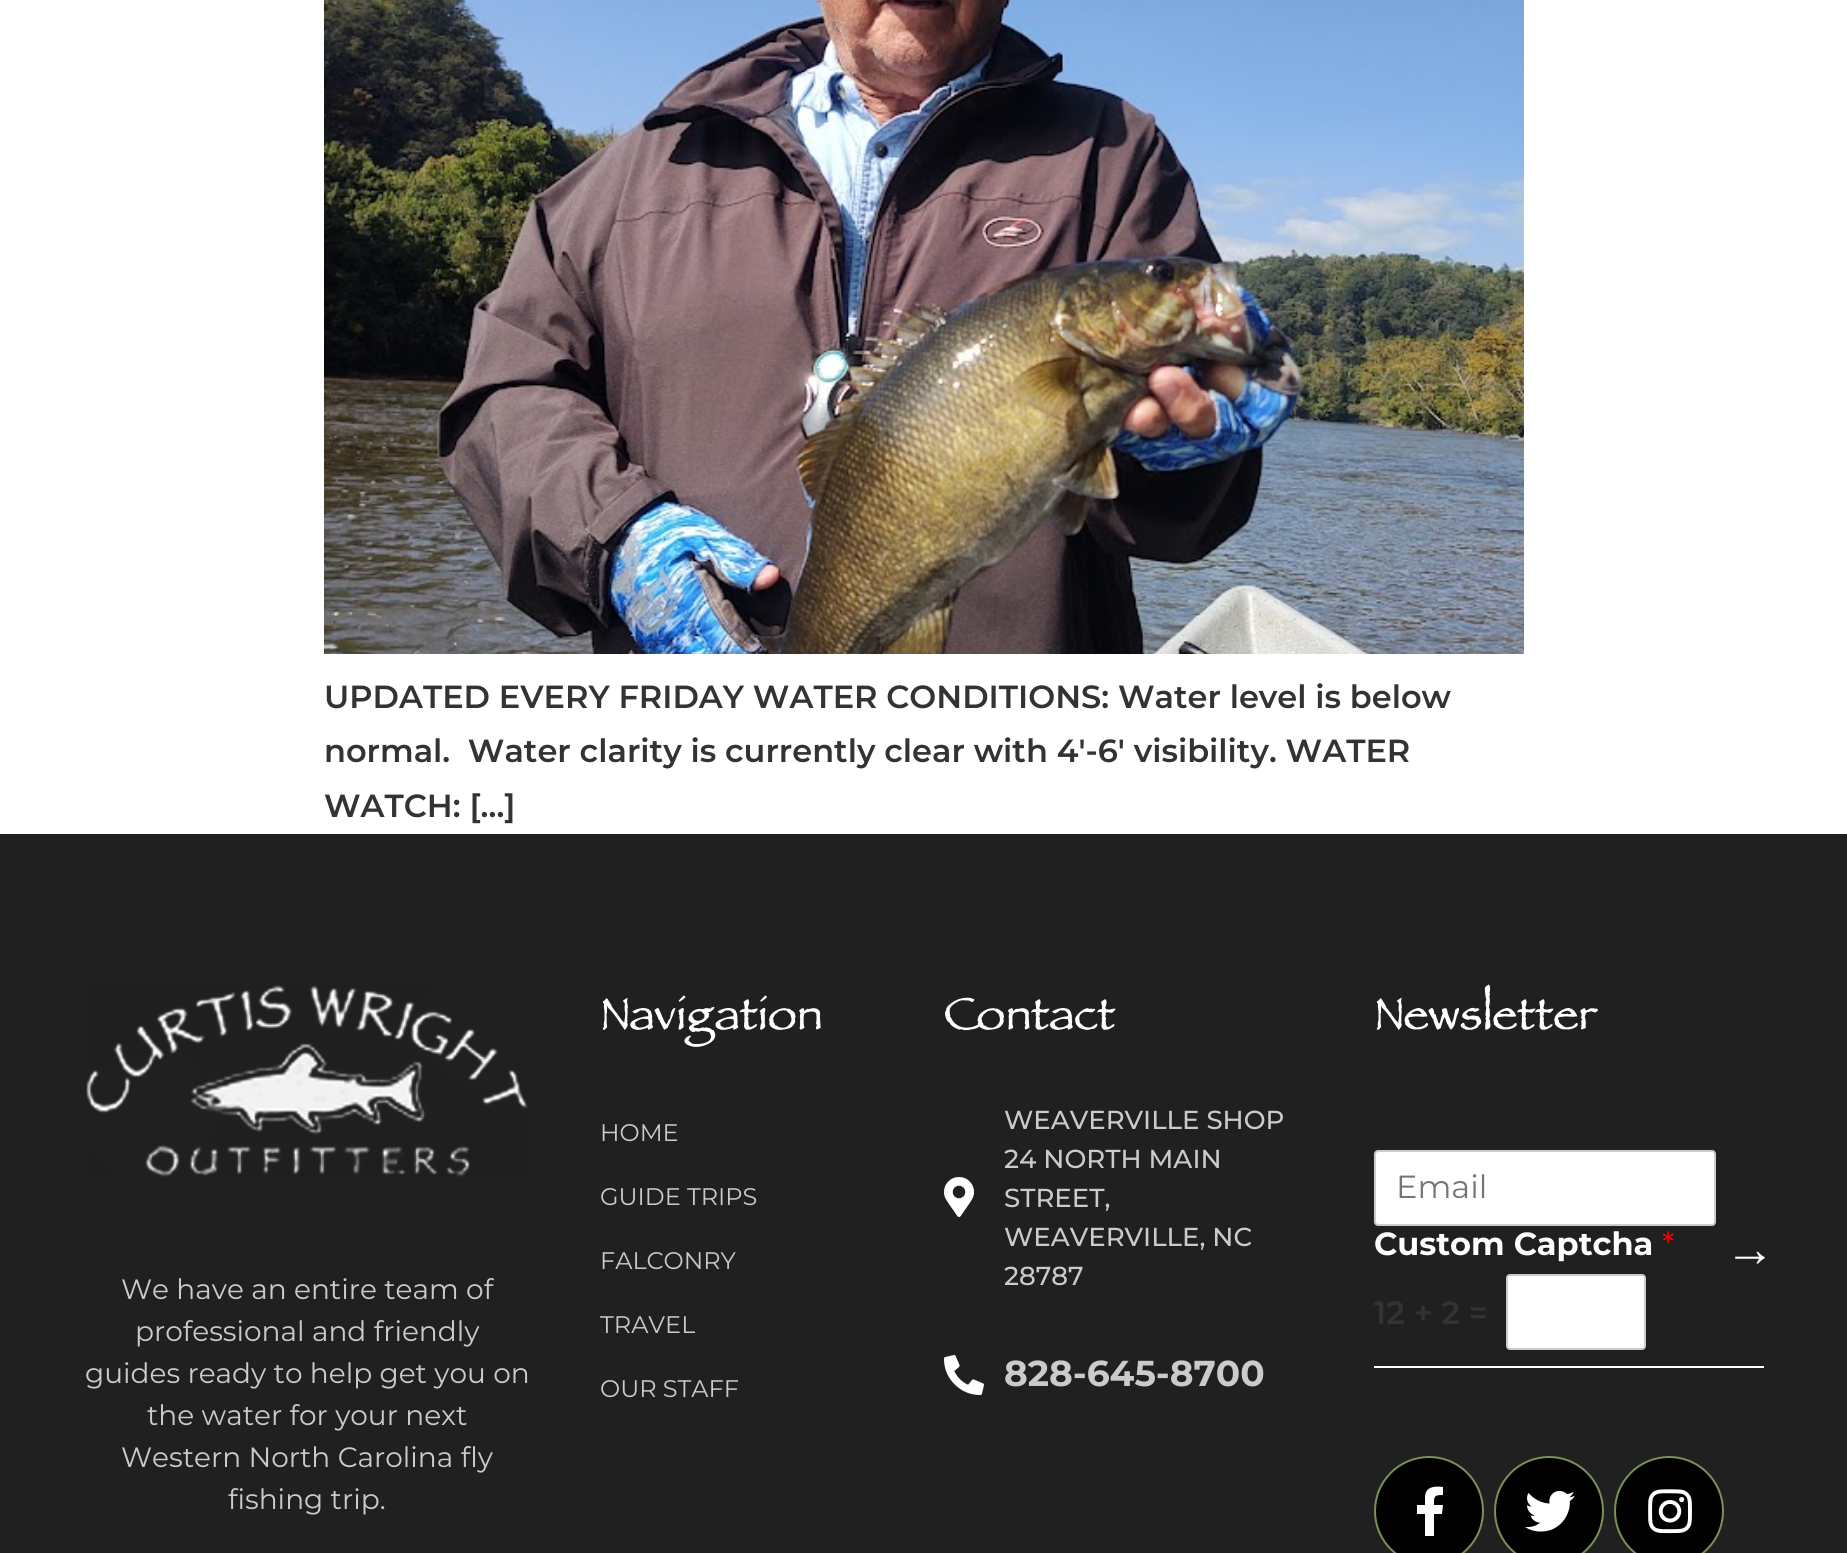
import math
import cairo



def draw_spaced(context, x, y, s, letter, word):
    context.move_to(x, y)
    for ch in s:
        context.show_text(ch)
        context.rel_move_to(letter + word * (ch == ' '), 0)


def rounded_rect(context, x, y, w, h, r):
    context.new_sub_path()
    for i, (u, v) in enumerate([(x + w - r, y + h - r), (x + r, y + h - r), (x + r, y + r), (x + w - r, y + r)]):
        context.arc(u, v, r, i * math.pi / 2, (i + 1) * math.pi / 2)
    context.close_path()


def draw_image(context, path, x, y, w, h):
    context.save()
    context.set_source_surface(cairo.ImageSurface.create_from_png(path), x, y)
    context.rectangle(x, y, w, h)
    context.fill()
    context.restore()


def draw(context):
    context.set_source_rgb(1, 1, 1)
    context.paint()
    draw_image(context, "images/1.png", 324, 0, 1200, 654)
    context.set_source_rgb(32 / 255, 32 / 255, 32 / 255)
    context.rectangle(0, 834, 1847, 719)
    context.fill()
    draw_image(context, "images/2.png", 86, 985, 442, 192)
    draw_image(context, "images/3.png", 944, 1177, 30, 40)
    draw_image(context, "images/4.png", 944, 1355, 40, 40)
    context.set_source_rgb(1, 1, 1)
    context.rectangle(1374, 1366, 390, 2)
    context.fill()
    rounded_rect(context, 1375, 1151, 340, 74, 3)
    context.fill_preserve()
    context.set_source_rgb(204 / 255, 204 / 255, 204 / 255)
    context.stroke()
    context.set_source_rgb(1, 1, 1)
    rounded_rect(context, 1507, 1275, 138, 74, 3)
    context.fill_preserve()
    context.set_source_rgb(204 / 255, 204 / 255, 204 / 255)
    context.stroke()
    context.set_source_rgb(0, 0, 0)
    context.arc(1429, 1511, 54, 0, 2 * math.pi)
    context.fill_preserve()
    context.set_source_rgb(121 / 255, 145 / 255, 85 / 255)
    context.stroke()
    context.set_source_rgb(1, 1, 1)
    context.new_path()
    context.move_to(1442, 1514)
    context.line_to(1434, 1514)
    context.line_to(1434, 1536)
    context.line_to(1425, 1536)
    context.line_to(1425, 1514)
    context.line_to(1417, 1514)
    context.line_to(1417, 1505)
    context.line_to(1425, 1505)
    context.line_to(1425, 1496)
    context.curve_to(1426, 1486, 1436, 1486, 1443, 1487)
    context.line_to(1443, 1495)
    context.curve_to(1434, 1495, 1434, 1496, 1434, 1505)
    context.line_to(1443, 1505)
    context.close_path()
    context.fill()
    context.set_source_rgb(0, 0, 0)
    context.arc(1549, 1511, 54, 0, 2 * math.pi)
    context.fill_preserve()
    context.set_source_rgb(121 / 255, 145 / 255, 85 / 255)
    context.stroke()
    draw_image(context, "images/5.png", 1525, 1490, 50, 42)
    context.set_source_rgb(0, 0, 0)
    context.arc(1669, 1511, 54, 0, 2 * math.pi)
    context.fill_preserve()
    context.set_source_rgb(121 / 255, 145 / 255, 85 / 255)
    context.stroke()
    draw_image(context, "images/6.png", 1648, 1489, 44, 45)
    context.select_font_face("Montserrat SemiBold")
    context.set_font_size(32)
    context.set_source_rgb(51 / 255, 51 / 255, 51 / 255)
    context.move_to(324, 708)
    context.show_text("UPDATED EVERY FRIDAY WATER CONDITIONS: Water level is below")
    context.move_to(324, 762)
    context.show_text("normal.  Water clarity is currently clear with 4′-6′ visibility. WATER")
    context.move_to(324, 817)
    context.show_text("WATCH: […]")
    context.select_font_face("Montserrat")
    context.set_font_size(28)
    context.set_source_rgb(203 / 255, 203 / 255, 203 / 255)
    context.move_to(121, 1299)
    context.show_text("We have an entire team of")
    context.move_to(135, 1341)
    context.show_text("professional and friendly")
    context.move_to(85, 1383)
    context.show_text("guides ready to help get you on")
    context.move_to(147, 1425)
    context.show_text("the water for your next")
    context.move_to(121, 1467)
    context.show_text("Western North Carolina fly")
    context.move_to(228, 1509)
    context.show_text("fishing trip.")
    context.select_font_face("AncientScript", cairo.FontSlant.NORMAL, cairo.FontWeight.BOLD)
    context.set_font_size(56)
    context.set_source_rgb(1, 1, 1)
    context.move_to(600, 1029)
    context.show_text("Navigation")
    context.select_font_face("Montserrat")
    context.set_font_size(24)
    context.set_source_rgb(203 / 255, 203 / 255, 203 / 255)
    context.move_to(600, 1141)
    context.show_text("HOME")
    context.move_to(600, 1205)
    context.show_text("GUIDE TRIPS")
    context.move_to(600, 1269)
    context.show_text("FALCONRY")
    context.move_to(600, 1333)
    context.show_text("TRAVEL")
    context.move_to(600, 1397)
    context.show_text("OUR STAFF")
    context.select_font_face("AncientScript", cairo.FontSlant.NORMAL, cairo.FontWeight.BOLD)
    context.set_font_size(56)
    context.set_source_rgb(1, 1, 1)
    context.move_to(944, 1029)
    context.show_text("Contact")
    context.select_font_face("Montserrat Medium")
    context.set_font_size(26)
    context.set_source_rgb(203 / 255, 203 / 255, 203 / 255)
    context.move_to(1004, 1129)
    context.show_text("WEAVERVILLE SHOP")
    context.move_to(1004, 1168)
    context.show_text("24 NORTH MAIN")
    context.move_to(1004, 1207)
    context.show_text("STREET,")
    context.move_to(1004, 1246)
    context.show_text("WEAVERVILLE, NC")
    context.move_to(1004, 1285)
    context.show_text("28787")
    context.select_font_face("Montserrat", cairo.FontSlant.NORMAL, cairo.FontWeight.BOLD)
    context.set_font_size(36)
    context.move_to(1004, 1386)
    context.show_text("828-645-8700")
    context.select_font_face("AncientScript", cairo.FontSlant.NORMAL, cairo.FontWeight.BOLD)
    context.set_font_size(56)
    context.set_source_rgb(1, 1, 1)
    context.move_to(1374, 1029)
    context.show_text("Newsletter")
    context.select_font_face("Montserrat")
    context.set_font_size(32)
    context.set_source_rgb(117 / 255, 117 / 255, 117 / 255)
    context.move_to(1396, 1198)
    context.show_text("Email")
    context.select_font_face("Montserrat", cairo.FontSlant.NORMAL, cairo.FontWeight.BOLD)
    context.set_source_rgb(1, 1, 1)
    context.move_to(1374, 1255)
    context.show_text("Custom Captcha")
    context.select_font_face("Montserrat")
    context.set_source_rgb(1, 0, 0)
    context.move_to(1662, 1255)
    context.show_text("*")
    context.select_font_face("Montserrat SemiBold")
    context.set_source_rgb(51 / 255, 51 / 255, 51 / 255)
    context.move_to(1374, 1324)
    context.show_text("12 + 2 =")
    context.select_font_face("Liberation Sans", cairo.FontSlant.NORMAL, cairo.FontWeight.BOLD)
    context.set_font_size(50)
    context.set_source_rgb(1, 1, 1)
    draw_spaced(context, 1725, 1266, "→", 4, 0)


surface = cairo.ImageSurface(cairo.Format.RGB24, 1847, 1553)
context = cairo.Context(surface)
options = cairo.FontOptions()
options.set_hint_metrics(cairo.HintMetrics.OFF)
options.set_hint_style(cairo.HintStyle.NONE)
context.set_font_options(options)
context.set_miter_limit(4)
draw(context)
surface.write_to_png("out.png")
